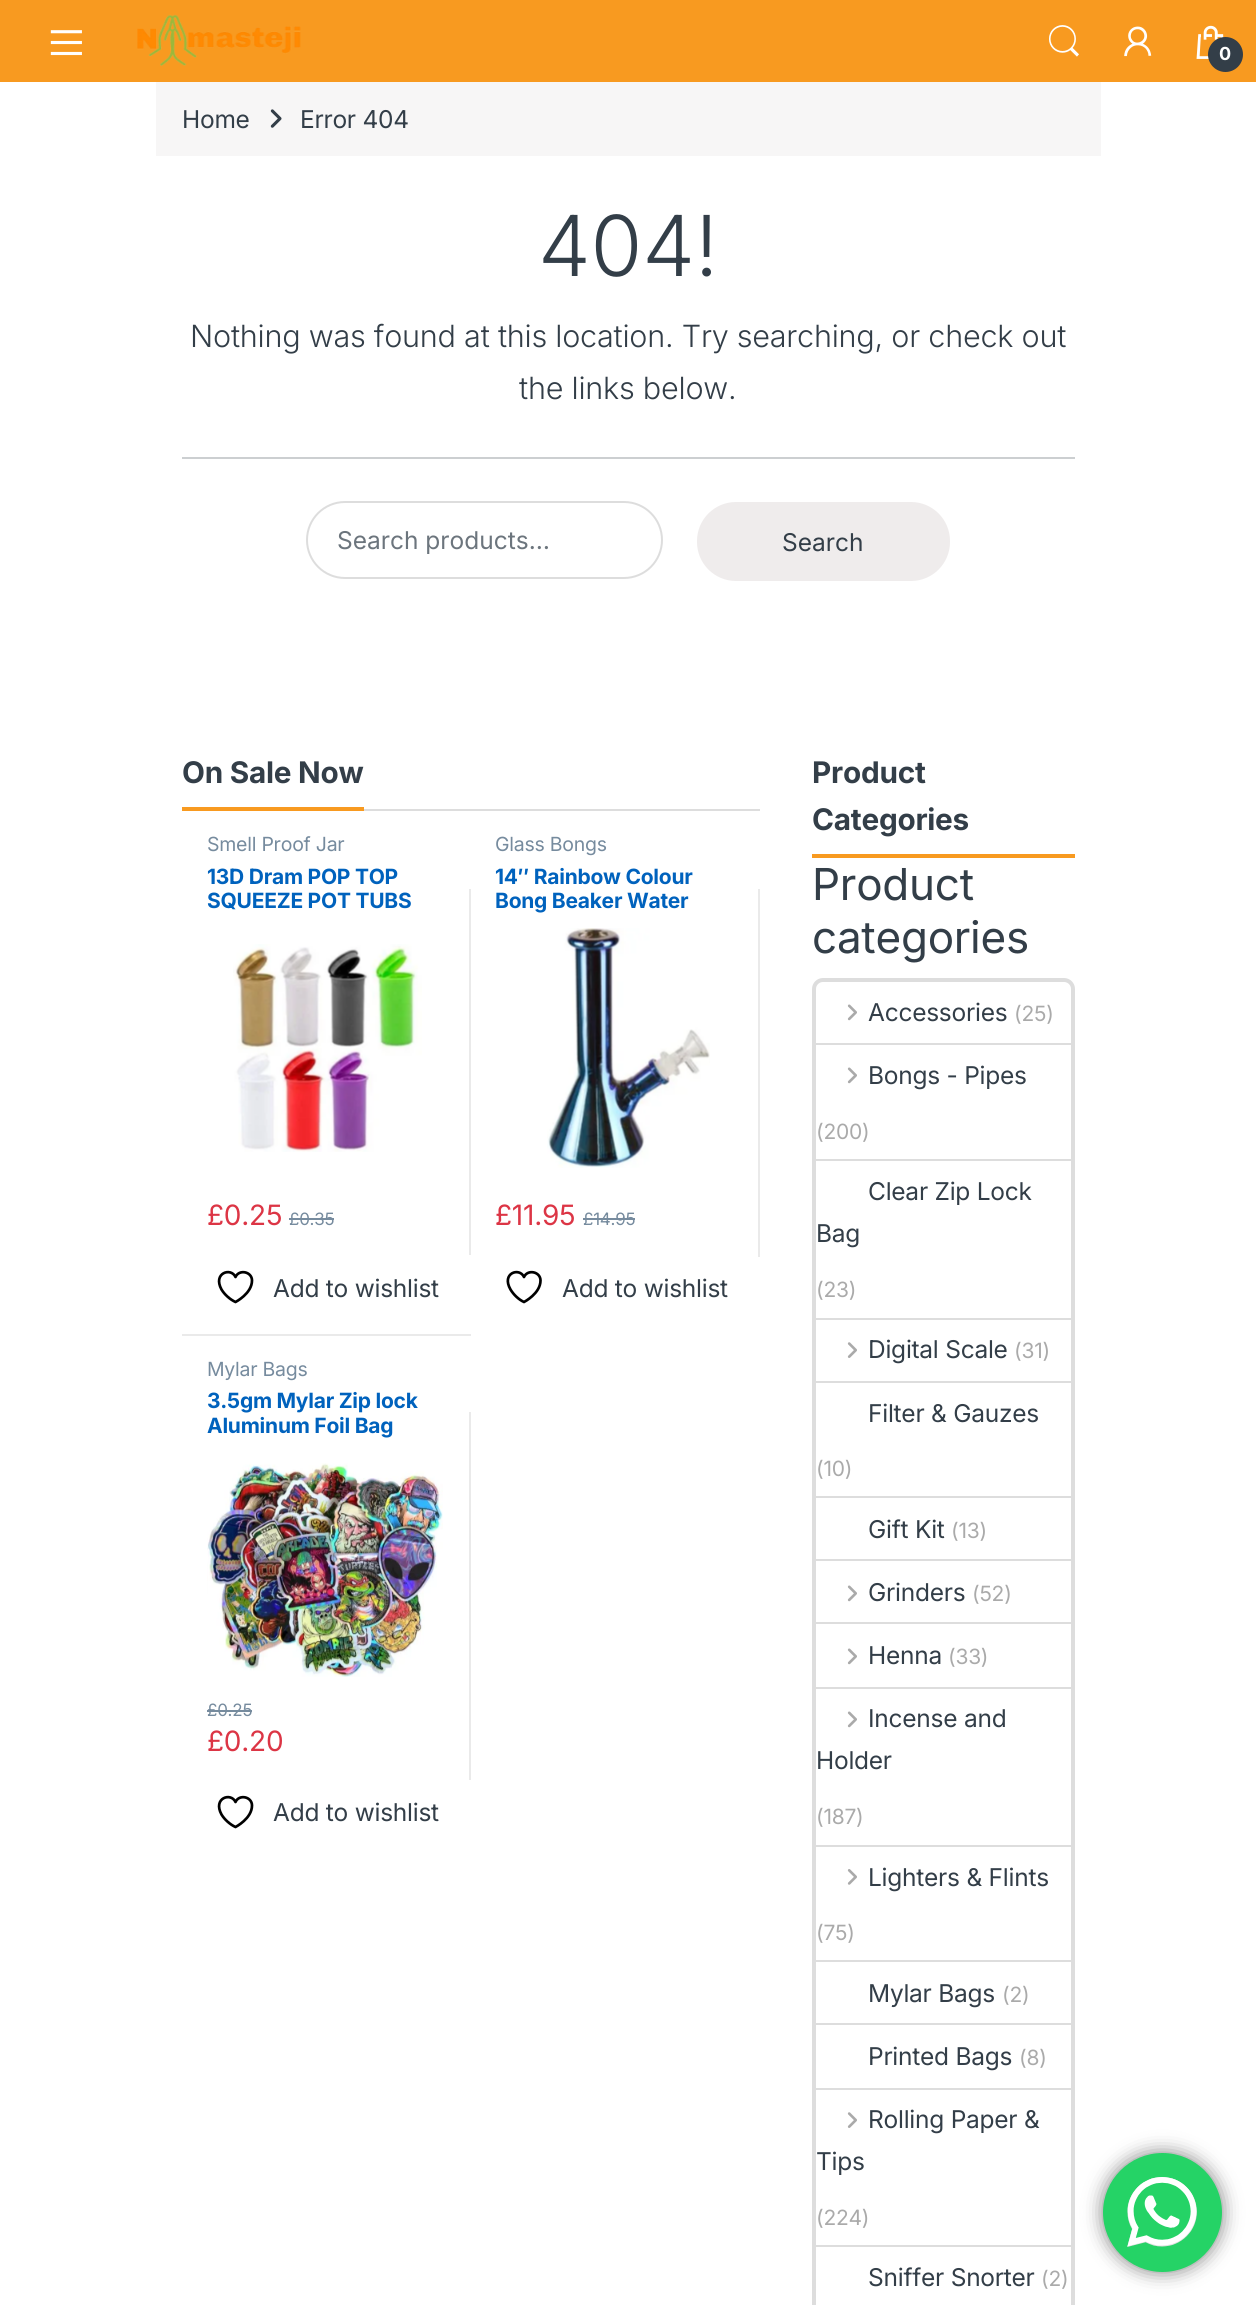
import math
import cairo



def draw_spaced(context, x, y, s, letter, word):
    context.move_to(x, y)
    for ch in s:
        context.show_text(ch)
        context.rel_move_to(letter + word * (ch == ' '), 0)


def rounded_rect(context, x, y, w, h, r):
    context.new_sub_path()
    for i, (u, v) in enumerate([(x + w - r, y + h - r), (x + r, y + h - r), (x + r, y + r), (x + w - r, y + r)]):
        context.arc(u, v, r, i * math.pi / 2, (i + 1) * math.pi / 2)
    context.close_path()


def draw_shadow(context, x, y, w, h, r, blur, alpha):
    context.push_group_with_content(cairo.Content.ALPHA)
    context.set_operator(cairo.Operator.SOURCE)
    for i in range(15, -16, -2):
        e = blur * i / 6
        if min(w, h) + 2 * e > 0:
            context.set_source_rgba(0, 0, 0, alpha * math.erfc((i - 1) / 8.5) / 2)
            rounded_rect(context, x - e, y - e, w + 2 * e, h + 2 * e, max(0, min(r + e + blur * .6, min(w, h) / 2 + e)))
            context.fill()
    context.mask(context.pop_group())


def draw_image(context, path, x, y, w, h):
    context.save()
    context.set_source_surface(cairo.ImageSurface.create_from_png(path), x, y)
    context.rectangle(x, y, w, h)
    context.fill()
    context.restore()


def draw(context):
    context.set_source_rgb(1, 1, 1)
    context.paint()
    context.set_source_rgb(248 / 255, 154 / 255, 32 / 255)
    context.rectangle(0, 0, 1256, 82)
    context.fill()
    draw_image(context, "images/1.png", 50, 30, 32, 26)
    draw_image(context, "images/2.png", 137, 14, 164, 52)
    draw_image(context, "images/3.png", 1049, 25, 30, 32)
    draw_image(context, "images/4.png", 1124, 26, 28, 31)
    draw_image(context, "images/5.png", 1196, 25, 28, 34)
    context.set_source_rgb(51 / 255, 62 / 255, 72 / 255)
    context.arc(1225.5, 54.5, 17.5, 0, 2 * math.pi)
    context.fill()
    context.set_source_rgb(247 / 255, 246 / 255, 246 / 255)
    context.rectangle(156, 82, 945, 74)
    context.fill()
    draw_image(context, "images/6.png", 270, 109, 12, 19)
    context.set_source_rgb(204 / 255, 207 / 255, 209 / 255)
    context.rectangle(182, 457, 893, 2)
    context.fill()
    rounded_rect(context, 307, 502, 355, 76, 38)
    context.set_source_rgb(221 / 255, 221 / 255, 221 / 255)
    context.stroke()
    context.set_source_rgb(239 / 255, 236 / 255, 236 / 255)
    rounded_rect(context, 698, 503, 251, 77, 38)
    context.fill_preserve()
    context.stroke()
    context.set_source_rgb(221 / 255, 221 / 255, 221 / 255)
    context.rectangle(364, 809, 396, 2)
    context.fill()
    context.set_source_rgb(248 / 255, 154 / 255, 32 / 255)
    context.rectangle(182, 807, 182, 4)
    context.fill()
    context.set_source_rgb(234 / 255, 234 / 255, 234 / 255)
    context.rectangle(182, 1334, 289, 2)
    context.fill()
    draw_image(context, "images/7.png", 233, 944, 189, 208)
    context.set_source_rgb(118 / 255, 139 / 255, 158 / 255)
    context.rectangle(289, 1218, 45, 2)
    context.fill()
    context.new_path()
    context.move_to(252, 1280.5)
    context.curve_to(252, 1271.5, 239, 1269, 235.5, 1277)
    context.curve_to(231, 1267, 212.5, 1273, 221.5, 1289.5)
    context.curve_to(224.5, 1294.5, 230, 1299.5, 235.5, 1302)
    context.curve_to(235.5, 1302, 252, 1293.5, 252, 1280.5)
    context.close_path()
    context.set_source_rgb(0, 0, 0)
    context.set_line_width(2.7)
    context.set_line_cap(cairo.LineCap.ROUND)
    context.set_line_join(cairo.LineJoin.ROUND)
    context.stroke()
    context.set_source_rgb(234 / 255, 234 / 255, 234 / 255)
    context.rectangle(469, 889, 2, 366)
    context.fill()
    draw_image(context, "images/8.png", 547, 928, 163, 240)
    context.set_source_rgb(118 / 255, 139 / 255, 158 / 255)
    context.rectangle(583, 1218, 52, 2)
    context.fill()
    context.new_path()
    context.move_to(540.5, 1280.5)
    context.curve_to(540.5, 1271.5, 527.5, 1269, 524, 1277)
    context.curve_to(519.5, 1267, 501, 1273, 510.5, 1289.5)
    context.curve_to(513.5, 1294.5, 518.5, 1299.5, 524, 1302)
    context.curve_to(524, 1302, 540.5, 1293.5, 540.5, 1280.5)
    context.close_path()
    context.set_source_rgb(0, 0, 0)
    context.stroke()
    context.set_source_rgb(234 / 255, 234 / 255, 234 / 255)
    context.rectangle(758, 889, 2, 368)
    context.fill()
    draw_image(context, "images/9.png", 207, 1463, 236, 214)
    context.set_source_rgb(118 / 255, 139 / 255, 158 / 255)
    context.rectangle(207, 1710, 45, 2)
    context.fill()
    context.new_path()
    context.move_to(252, 1805.5)
    context.curve_to(252, 1796.5, 239, 1794, 235.5, 1802)
    context.curve_to(231, 1792, 212.5, 1798, 221.5, 1814.5)
    context.curve_to(224.5, 1819.5, 230, 1824.5, 235.5, 1827)
    context.curve_to(235.5, 1827, 252, 1818.5, 252, 1805.5)
    context.close_path()
    context.set_source_rgb(0, 0, 0)
    context.stroke()
    context.set_source_rgb(234 / 255, 234 / 255, 234 / 255)
    context.rectangle(469, 1412, 2, 368)
    context.fill()
    context.set_source_rgb(248 / 255, 154 / 255, 32 / 255)
    context.rectangle(812, 854, 263, 4)
    context.fill()
    rounded_rect(context, 814, 980, 259, 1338, 9)
    context.set_source_rgb(221 / 255, 221 / 255, 221 / 255)
    context.set_line_width(4)
    context.set_line_cap(cairo.LineCap.BUTT)
    context.set_line_join(cairo.LineJoin.MITER)
    context.stroke()
    draw_image(context, "images/10.png", 847, 1004, 10, 17)
    context.rectangle(816, 1043, 255, 2)
    context.fill()
    draw_image(context, "images/10.png", 847, 1067, 10, 17)
    context.rectangle(816, 1159, 255, 2)
    context.fill()
    context.rectangle(816, 1318, 255, 2)
    context.fill()
    draw_image(context, "images/11.png", 847, 1342, 10, 16)
    context.rectangle(816, 1381, 255, 2)
    context.fill()
    context.rectangle(816, 1496, 255, 2)
    context.fill()
    context.rectangle(816, 1559, 255, 2)
    context.fill()
    draw_image(context, "images/10.png", 847, 1585, 10, 17)
    context.rectangle(816, 1622, 255, 2)
    context.fill()
    draw_image(context, "images/10.png", 847, 1648, 10, 17)
    context.rectangle(816, 1687, 255, 2)
    context.fill()
    draw_image(context, "images/10.png", 847, 1711, 10, 17)
    context.rectangle(816, 1845, 255, 2)
    context.fill()
    draw_image(context, "images/12.png", 847, 1869, 10, 16)
    context.rectangle(816, 1960, 255, 2)
    context.fill()
    context.rectangle(816, 2023, 255, 2)
    context.fill()
    context.rectangle(816, 2088, 255, 2)
    context.fill()
    draw_image(context, "images/11.png", 847, 2112, 10, 16)
    context.rectangle(816, 2245, 255, 2)
    context.fill()
    context.set_source_rgb(0, 0, 0)
    draw_shadow(context, 1103, 2153, 119, 119, 59.5, 9.5, 0.5)
    context.set_source_rgb(37 / 255, 211 / 255, 102 / 255)
    context.arc(1162.5, 2212.5, 59.5, 0, 2 * math.pi)
    context.fill()
    draw_image(context, "images/13.png", 1127, 2177, 70, 70)
    context.select_font_face("Inter", cairo.FontSlant.NORMAL, cairo.FontWeight.BOLD)
    context.set_font_size(18)
    context.set_source_rgb(1, 1, 1)
    draw_spaced(context, 1219, 60, "0", -0.25, 0)
    context.select_font_face("Inter")
    context.set_font_size(24.5)
    context.set_source_rgb(51 / 255, 62 / 255, 72 / 255)
    draw_spaced(context, 182, 128, "Home", -0.25, 0)
    draw_spaced(context, 300, 128, "Error 404", -0.25, 0)
    context.select_font_face("Inter Light")
    context.set_font_size(84)
    draw_spaced(context, 538, 276, "404!", -0.25, 0)
    context.set_font_size(30.6)
    draw_spaced(context, 190, 347, "Nothing was found at this location. Try searching, or check out", -0.25, 0)
    draw_spaced(context, 519, 399, "the links below.", -0.25, 0)
    context.select_font_face("Inter")
    context.set_font_size(24.5)
    context.set_source_rgb(108 / 255, 117 / 255, 125 / 255)
    context.move_to(337, 549)
    context.show_text("Search products…")
    context.set_source_rgb(51 / 255, 62 / 255, 72 / 255)
    context.move_to(782, 551)
    context.show_text("Search")
    context.select_font_face("Inter", cairo.FontSlant.NORMAL, cairo.FontWeight.BOLD)
    context.set_font_size(29.75)
    draw_spaced(context, 182, 783, "On Sale Now", -0.25, 0)
    context.select_font_face("Inter")
    context.set_font_size(19.5)
    context.set_source_rgb(118 / 255, 139 / 255, 158 / 255)
    draw_spaced(context, 207, 851, "Smell Proof Jar", -0.25, 0)
    context.select_font_face("Inter", cairo.FontSlant.NORMAL, cairo.FontWeight.BOLD)
    context.set_font_size(21)
    context.set_source_rgb(0, 98 / 255, 189 / 255)
    draw_spaced(context, 207, 884, "13D Dram POP TOP", -0.25, 0)
    draw_spaced(context, 207, 908, "SQUEEZE POT TUBS", -0.25, 0)
    context.select_font_face("Inter")
    context.set_font_size(28)
    context.set_source_rgb(220 / 255, 53 / 255, 69 / 255)
    draw_spaced(context, 207, 1225, "£0.25", -0.25, 0)
    context.set_font_size(17)
    context.set_source_rgb(118 / 255, 139 / 255, 158 / 255)
    draw_spaced(context, 289, 1225, "£0.35", -0.25, 0)
    context.set_font_size(24.5)
    context.set_source_rgb(51 / 255, 62 / 255, 72 / 255)
    draw_spaced(context, 273, 1297, "Add to wishlist", -0.25, 0)
    context.set_font_size(19.5)
    context.set_source_rgb(118 / 255, 139 / 255, 158 / 255)
    draw_spaced(context, 495, 851, "Glass Bongs", -0.25, 0)
    context.select_font_face("Inter", cairo.FontSlant.NORMAL, cairo.FontWeight.BOLD)
    context.set_font_size(21)
    context.set_source_rgb(0, 98 / 255, 189 / 255)
    draw_spaced(context, 495, 884, "14″ Rainbow Colour", -0.25, 0)
    draw_spaced(context, 495, 908, "Bong Beaker Water", -0.25, 0)
    context.select_font_face("Inter")
    context.set_font_size(28)
    context.set_source_rgb(220 / 255, 53 / 255, 69 / 255)
    draw_spaced(context, 495, 1225, "£11.95", -0.25, 0)
    context.set_font_size(17)
    context.set_source_rgb(118 / 255, 139 / 255, 158 / 255)
    draw_spaced(context, 583, 1225, "£14.95", -0.25, 0)
    context.set_font_size(24.5)
    context.set_source_rgb(51 / 255, 62 / 255, 72 / 255)
    draw_spaced(context, 562, 1297, "Add to wishlist", -0.25, 0)
    context.set_font_size(19.5)
    context.set_source_rgb(118 / 255, 139 / 255, 158 / 255)
    draw_spaced(context, 207, 1376, "Mylar Bags", -0.25, 0)
    context.select_font_face("Inter", cairo.FontSlant.NORMAL, cairo.FontWeight.BOLD)
    context.set_font_size(21)
    context.set_source_rgb(0, 98 / 255, 189 / 255)
    draw_spaced(context, 207, 1408, "3.5gm Mylar Zip lock", -0.25, 0)
    draw_spaced(context, 207, 1433, "Aluminum Foil Bag", -0.25, 0)
    context.select_font_face("Inter")
    context.set_font_size(17)
    context.set_source_rgb(118 / 255, 139 / 255, 158 / 255)
    draw_spaced(context, 207, 1716, "£0.25", -0.25, 0)
    context.set_font_size(28)
    context.set_source_rgb(220 / 255, 53 / 255, 69 / 255)
    draw_spaced(context, 207, 1751, "£0.20", -0.25, 0)
    context.set_font_size(24.5)
    context.set_source_rgb(51 / 255, 62 / 255, 72 / 255)
    draw_spaced(context, 273, 1821, "Add to wishlist", -0.25, 0)
    context.select_font_face("Inter", cairo.FontSlant.NORMAL, cairo.FontWeight.BOLD)
    context.set_font_size(29.75)
    draw_spaced(context, 812, 783, "Product", -0.25, 0)
    draw_spaced(context, 812, 830, "Categories", -0.25, 0)
    context.select_font_face("Inter")
    context.set_font_size(44)
    draw_spaced(context, 812, 900, "Product", -0.25, 0)
    draw_spaced(context, 812, 953, "categories", -0.25, 0)
    context.set_font_size(24.5)
    draw_spaced(context, 868, 1021, "Accessories", -0.25, 0)
    context.set_font_size(21)
    context.set_source_rgb(170 / 255, 170 / 255, 170 / 255)
    draw_spaced(context, 1014, 1021, "(25)", -0.25, 0)
    context.set_font_size(24.5)
    context.set_source_rgb(51 / 255, 62 / 255, 72 / 255)
    draw_spaced(context, 868, 1084, "Bongs - Pipes", -0.25, 0)
    context.set_font_size(21)
    context.set_source_rgb(170 / 255, 170 / 255, 170 / 255)
    draw_spaced(context, 816, 1139, "(200)", -0.25, 0)
    context.set_font_size(24.5)
    context.set_source_rgb(51 / 255, 62 / 255, 72 / 255)
    draw_spaced(context, 868, 1200, "Clear Zip Lock", -0.25, 0)
    draw_spaced(context, 816, 1242, "Bag", -0.25, 0)
    context.set_font_size(21)
    context.set_source_rgb(170 / 255, 170 / 255, 170 / 255)
    draw_spaced(context, 816, 1297, "(23)", -0.25, 0)
    context.set_font_size(24.5)
    context.set_source_rgb(51 / 255, 62 / 255, 72 / 255)
    draw_spaced(context, 868, 1358, "Digital Scale", -0.25, 0)
    context.set_font_size(21)
    context.set_source_rgb(170 / 255, 170 / 255, 170 / 255)
    draw_spaced(context, 1014, 1358, "(31)", -0.25, 0)
    context.set_font_size(24.5)
    context.set_source_rgb(51 / 255, 62 / 255, 72 / 255)
    draw_spaced(context, 868, 1422, "Filter & Gauzes", -0.25, 0)
    context.set_font_size(21)
    context.set_source_rgb(170 / 255, 170 / 255, 170 / 255)
    draw_spaced(context, 816, 1476, "(10)", -0.25, 0)
    context.set_font_size(24.5)
    context.set_source_rgb(51 / 255, 62 / 255, 72 / 255)
    draw_spaced(context, 868, 1538, "Gift Kit", -0.25, 0)
    context.set_font_size(21)
    context.set_source_rgb(170 / 255, 170 / 255, 170 / 255)
    draw_spaced(context, 951, 1538, "(13)", -0.25, 0)
    context.set_font_size(24.5)
    context.set_source_rgb(51 / 255, 62 / 255, 72 / 255)
    draw_spaced(context, 868, 1601, "Grinders", -0.25, 0)
    context.set_font_size(21)
    context.set_source_rgb(170 / 255, 170 / 255, 170 / 255)
    draw_spaced(context, 972, 1601, "(52)", -0.25, 0)
    context.set_font_size(24.5)
    context.set_source_rgb(51 / 255, 62 / 255, 72 / 255)
    draw_spaced(context, 868, 1664, "Henna", -0.25, 0)
    context.set_font_size(21)
    context.set_source_rgb(170 / 255, 170 / 255, 170 / 255)
    draw_spaced(context, 948, 1664, "(33)", -0.25, 0)
    context.set_font_size(24.5)
    context.set_source_rgb(51 / 255, 62 / 255, 72 / 255)
    draw_spaced(context, 868, 1727, "Incense and", -0.25, 0)
    draw_spaced(context, 816, 1769, "Holder", -0.25, 0)
    context.set_font_size(21)
    context.set_source_rgb(170 / 255, 170 / 255, 170 / 255)
    draw_spaced(context, 816, 1824, "(187)", -0.25, 0)
    context.set_font_size(24.5)
    context.set_source_rgb(51 / 255, 62 / 255, 72 / 255)
    draw_spaced(context, 868, 1886, "Lighters & Flints", -0.25, 0)
    context.set_font_size(21)
    context.set_source_rgb(170 / 255, 170 / 255, 170 / 255)
    draw_spaced(context, 816, 1940, "(75)", -0.25, 0)
    context.set_font_size(24.5)
    context.set_source_rgb(51 / 255, 62 / 255, 72 / 255)
    draw_spaced(context, 868, 2002, "Mylar Bags", -0.25, 0)
    context.set_font_size(21)
    context.set_source_rgb(170 / 255, 170 / 255, 170 / 255)
    draw_spaced(context, 1002, 2002, "(2)", -0.25, 0)
    context.set_font_size(24.5)
    context.set_source_rgb(51 / 255, 62 / 255, 72 / 255)
    draw_spaced(context, 868, 2065, "Printed Bags", -0.25, 0)
    context.set_font_size(21)
    context.set_source_rgb(170 / 255, 170 / 255, 170 / 255)
    draw_spaced(context, 1019, 2065, "(8)", -0.25, 0)
    context.set_font_size(24.5)
    context.set_source_rgb(51 / 255, 62 / 255, 72 / 255)
    draw_spaced(context, 868, 2128, "Rolling Paper &", -0.25, 0)
    draw_spaced(context, 816, 2170, "Tips", -0.25, 0)
    context.set_font_size(21)
    context.set_source_rgb(170 / 255, 170 / 255, 170 / 255)
    draw_spaced(context, 816, 2225, "(224)", -0.25, 0)
    context.set_font_size(24.5)
    context.set_source_rgb(51 / 255, 62 / 255, 72 / 255)
    draw_spaced(context, 868, 2286, "Sniffer Snorter", -0.25, 0)
    context.set_font_size(21)
    context.set_source_rgb(170 / 255, 170 / 255, 170 / 255)
    draw_spaced(context, 1041, 2286, "(2)", -0.25, 0)


surface = cairo.ImageSurface(cairo.Format.RGB24, 1256, 2305)
context = cairo.Context(surface)
options = cairo.FontOptions()
options.set_hint_metrics(cairo.HintMetrics.OFF)
options.set_hint_style(cairo.HintStyle.NONE)
context.set_font_options(options)
context.set_miter_limit(4)
draw(context)
surface.write_to_png("out.png")
